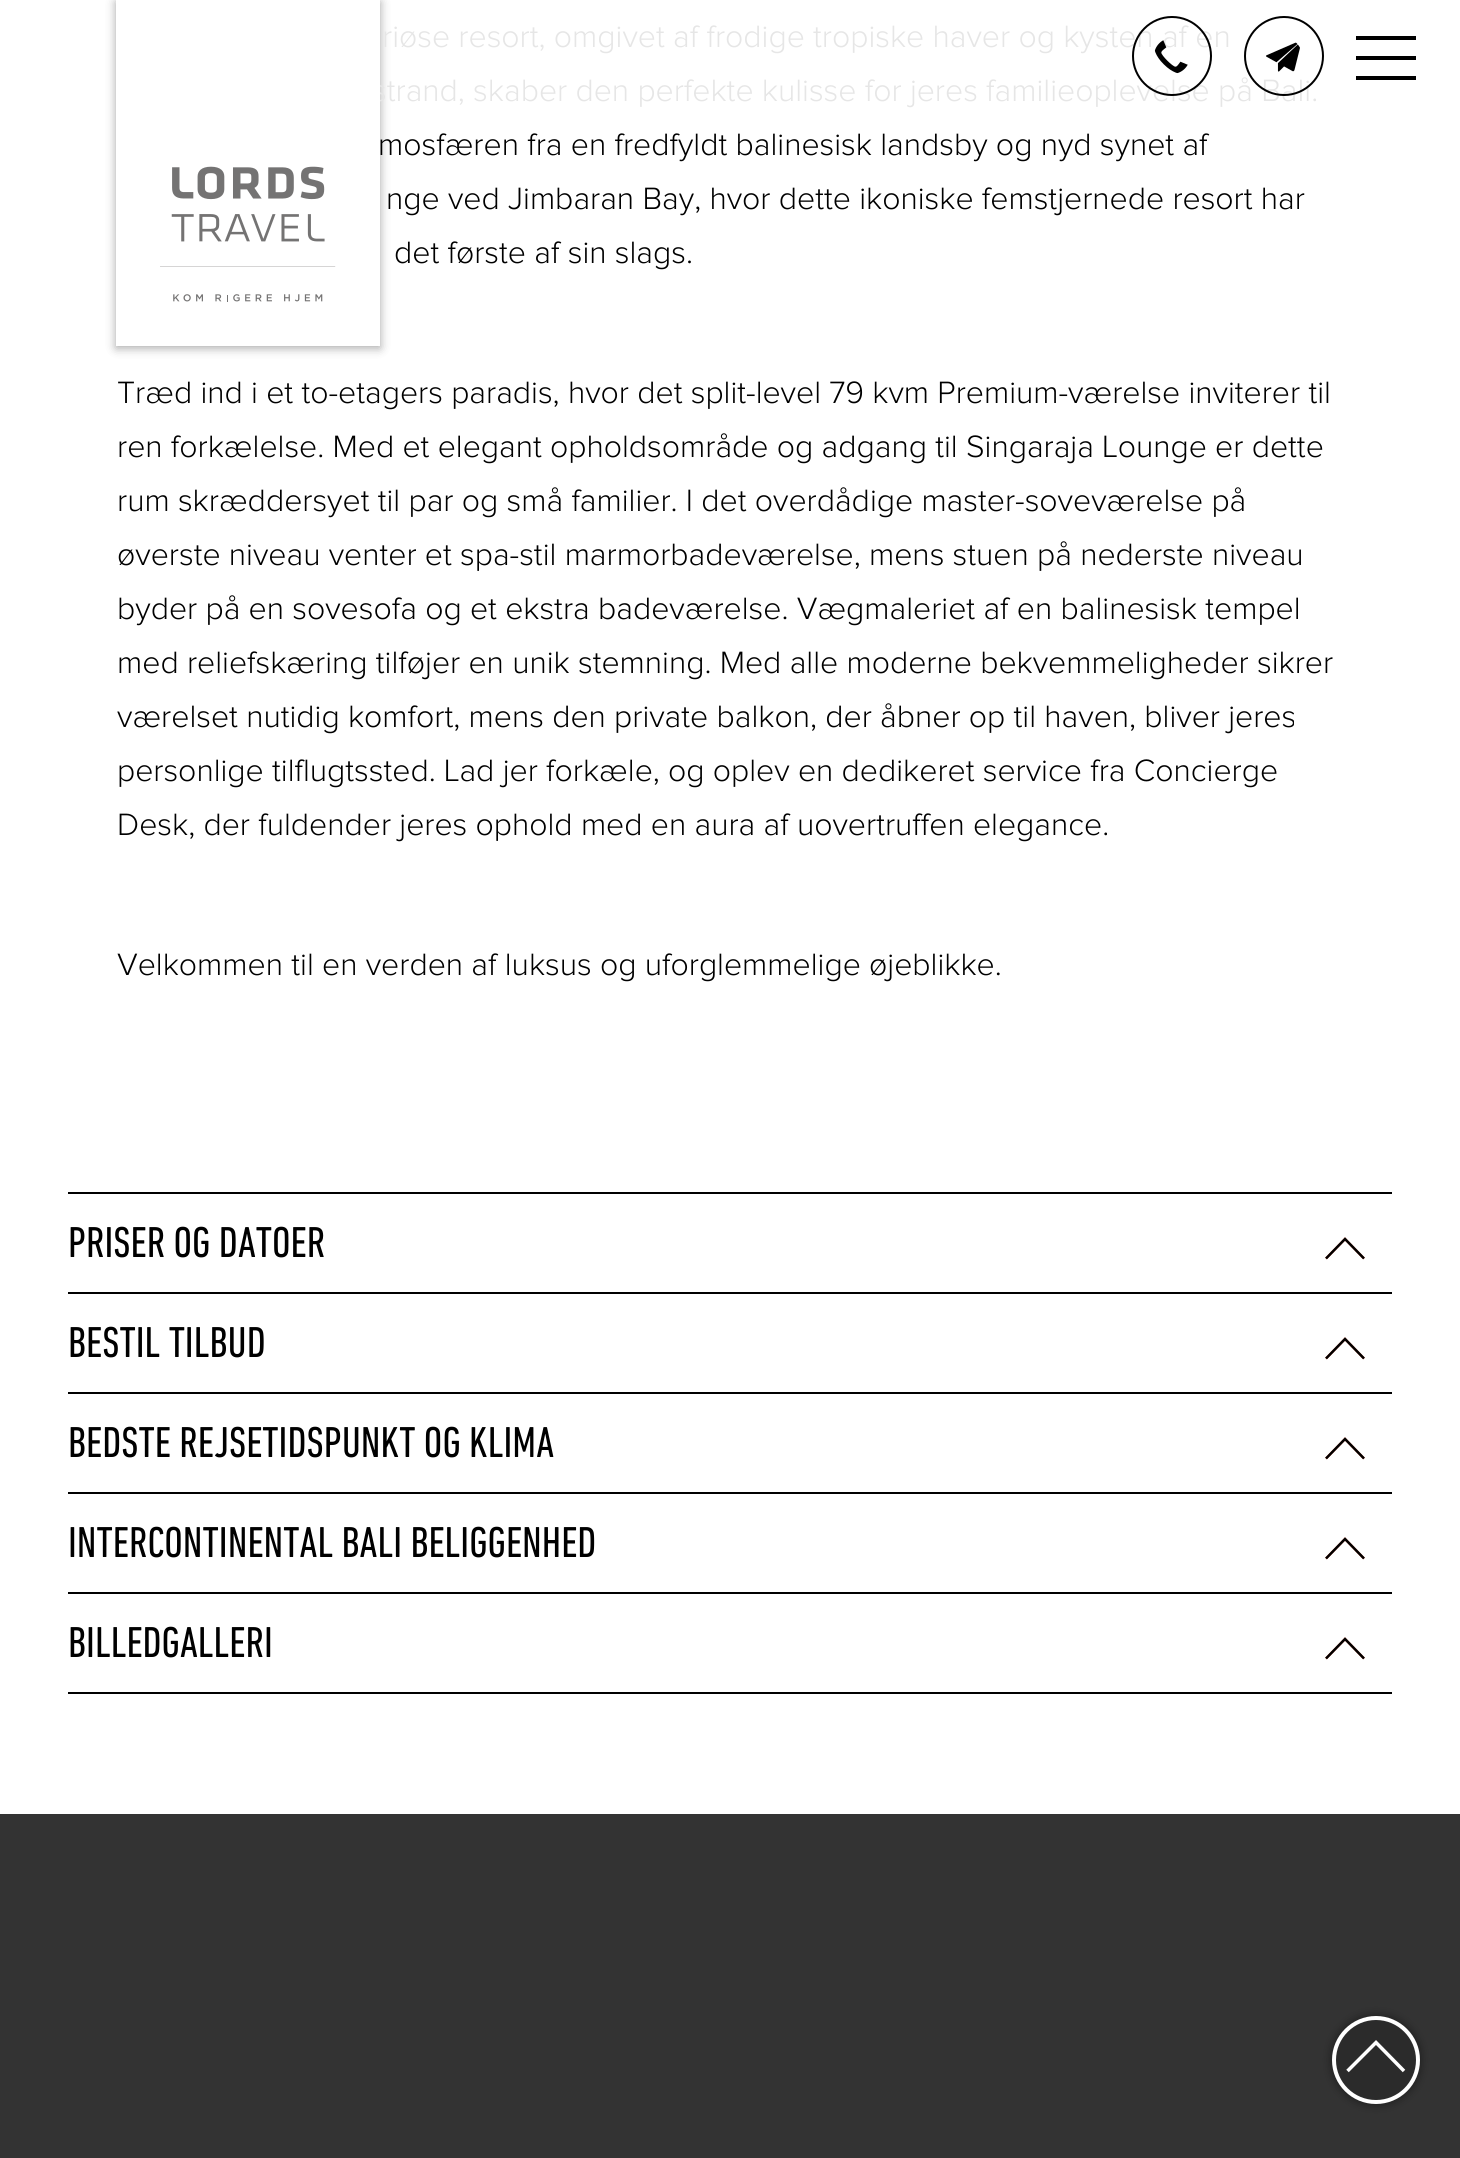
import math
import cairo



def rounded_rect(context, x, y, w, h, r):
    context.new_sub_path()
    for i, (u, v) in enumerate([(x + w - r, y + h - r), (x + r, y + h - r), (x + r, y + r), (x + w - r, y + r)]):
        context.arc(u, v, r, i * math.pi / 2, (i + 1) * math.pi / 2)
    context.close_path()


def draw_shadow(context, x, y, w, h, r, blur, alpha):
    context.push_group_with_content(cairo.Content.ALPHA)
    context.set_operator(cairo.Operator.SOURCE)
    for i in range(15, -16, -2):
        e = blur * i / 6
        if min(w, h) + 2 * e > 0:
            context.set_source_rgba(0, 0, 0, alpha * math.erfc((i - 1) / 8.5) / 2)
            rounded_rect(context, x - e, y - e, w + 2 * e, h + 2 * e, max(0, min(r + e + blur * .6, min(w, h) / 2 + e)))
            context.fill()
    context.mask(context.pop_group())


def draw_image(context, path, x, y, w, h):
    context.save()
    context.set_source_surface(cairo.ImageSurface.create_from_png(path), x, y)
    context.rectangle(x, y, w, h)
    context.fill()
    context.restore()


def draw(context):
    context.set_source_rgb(1, 1, 1)
    context.paint()
    context.set_source_rgb(0, 0, 0)
    draw_shadow(context, 116, 2, 264, 346, 0, 5, 0.35)
    context.set_source_rgb(0, 0, 0)
    context.rectangle(1356, 36, 60, 4)
    context.fill()
    context.rectangle(1356, 56, 60, 4)
    context.fill()
    context.rectangle(1356, 76, 60, 4)
    context.fill()
    context.rectangle(68, 1192, 1324, 2)
    context.fill()
    context.new_path()
    context.move_to(1326, 1258.5)
    context.line_to(1345, 1239)
    context.line_to(1364, 1258.5)
    context.set_source_rgb(195 / 255, 75 / 255, 48 / 255)
    context.set_line_width(2.4)
    context.stroke()
    context.new_path()
    context.move_to(1326, 1258.5)
    context.line_to(1345, 1239)
    context.line_to(1364, 1258.5)
    context.set_source_rgb(0, 0, 0)
    context.stroke()
    context.rectangle(68, 1292, 1324, 2)
    context.fill()
    context.new_path()
    context.move_to(1326, 1358.5)
    context.line_to(1345, 1339)
    context.line_to(1364, 1358.5)
    context.set_source_rgb(195 / 255, 75 / 255, 48 / 255)
    context.stroke()
    context.new_path()
    context.move_to(1326, 1358.5)
    context.line_to(1345, 1339)
    context.line_to(1364, 1358.5)
    context.set_source_rgb(0, 0, 0)
    context.stroke()
    context.rectangle(68, 1392, 1324, 2)
    context.fill()
    context.new_path()
    context.move_to(1326, 1458.5)
    context.line_to(1345, 1439)
    context.line_to(1364, 1458.5)
    context.set_source_rgb(195 / 255, 75 / 255, 48 / 255)
    context.stroke()
    context.new_path()
    context.move_to(1326, 1458.5)
    context.line_to(1345, 1439)
    context.line_to(1364, 1458.5)
    context.set_source_rgb(0, 0, 0)
    context.stroke()
    context.rectangle(68, 1492, 1324, 2)
    context.fill()
    context.new_path()
    context.move_to(1326, 1558.5)
    context.line_to(1345, 1539)
    context.line_to(1364, 1558.5)
    context.set_source_rgb(195 / 255, 75 / 255, 48 / 255)
    context.stroke()
    context.new_path()
    context.move_to(1326, 1558.5)
    context.line_to(1345, 1539)
    context.line_to(1364, 1558.5)
    context.set_source_rgb(0, 0, 0)
    context.stroke()
    context.rectangle(68, 1592, 1324, 2)
    context.fill()
    context.rectangle(68, 1692, 1324, 2)
    context.fill()
    context.new_path()
    context.move_to(1326, 1658.5)
    context.line_to(1345, 1639)
    context.line_to(1364, 1658.5)
    context.set_source_rgb(195 / 255, 75 / 255, 48 / 255)
    context.stroke()
    context.new_path()
    context.move_to(1326, 1658.5)
    context.line_to(1345, 1639)
    context.line_to(1364, 1658.5)
    context.set_source_rgb(0, 0, 0)
    context.stroke()
    context.set_source_rgb(51 / 255, 51 / 255, 51 / 255)
    context.rectangle(0, 1814, 1460, 344)
    context.fill()
    context.save()
    context.set_fill_rule(cairo.FillRule.EVEN_ODD)
    context.new_path()
    context.move_to(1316, 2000)
    context.line_to(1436, 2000)
    context.line_to(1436, 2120)
    context.line_to(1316, 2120)
    context.close_path()
    context.move_to(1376, 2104)
    context.curve_to(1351.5, 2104, 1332, 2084.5, 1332, 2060)
    context.curve_to(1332, 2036, 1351.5, 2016, 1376, 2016)
    context.curve_to(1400.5, 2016, 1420, 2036, 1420, 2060)
    context.curve_to(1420, 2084.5, 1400.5, 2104, 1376, 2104)
    context.close_path()
    context.clip()
    context.set_source_rgb(0, 0, 0)
    draw_shadow(context, 1332, 2016, 88, 88, 44, 5, 0.5)
    context.restore()
    context.set_source_rgba(0, 0, 0, 0.15)
    context.new_path()
    context.move_to(1376, 2104)
    context.curve_to(1352, 2104, 1332, 2084, 1332, 2060)
    context.curve_to(1332, 2036, 1352, 2016, 1376, 2016)
    context.curve_to(1400, 2016, 1420, 2036, 1420, 2060)
    context.curve_to(1420, 2084, 1400, 2104, 1376, 2104)
    context.close_path()
    context.fill()
    context.new_path()
    context.move_to(1376, 2102)
    context.curve_to(1353, 2102, 1334, 2083.5, 1334, 2060)
    context.curve_to(1334, 2037, 1353, 2018, 1376, 2018)
    context.curve_to(1399, 2018, 1418, 2037, 1418, 2060)
    context.curve_to(1418, 2083.5, 1399, 2102, 1376, 2102)
    context.close_path()
    context.set_source_rgb(1, 1, 1)
    context.set_line_width(4)
    context.stroke()
    context.new_path()
    context.move_to(1347.5, 2071)
    context.line_to(1376, 2042.5)
    context.line_to(1404, 2071)
    context.set_line_width(3.5)
    context.stroke()
    context.select_font_face("Proxima Nova Light")
    context.set_font_size(32)
    context.set_source_rgb(230 / 255, 230 / 255, 230 / 255)
    context.move_to(382, 47)
    context.show_text("riøse resort, omgivet af frodige tropiske haver og kysten af en")
    context.move_to(372, 101)
    context.show_text("strand, skaber den perfekte kulisse for jeres familieoplevelse på Bali.")
    context.set_source_rgb(1, 1, 1)
    context.rectangle(116, 0, 264, 346)
    context.fill()
    draw_image(context, "images/1.png", 160, 166, 176, 136)
    context.arc(1172, 56, 39, 0, 2 * math.pi)
    context.set_source_rgb(0, 0, 0)
    context.set_line_width(2)
    context.stroke()
    draw_image(context, "images/2.png", 1154, 40, 34, 34)
    context.arc(1284, 56, 39, 0, 2 * math.pi)
    context.stroke()
    draw_image(context, "images/3.png", 1266, 42, 34, 30)
    context.move_to(378, 155)
    context.show_text("mosfæren fra en fredfyldt balinesisk landsby og nyd synet af")
    context.move_to(386, 209)
    context.show_text("nge ved Jimbaran Bay, hvor dette ikoniske femstjernede resort har")
    context.move_to(394, 263)
    context.show_text("det første af sin slags.")
    context.move_to(117, 403)
    context.show_text("Træd ind i et to-etagers paradis, hvor det split-level 79 kvm Premium-værelse inviterer til")
    context.move_to(117, 457)
    context.show_text("ren forkælelse. Med et elegant opholdsområde og adgang til Singaraja Lounge er dette")
    context.move_to(117, 511)
    context.show_text("rum skræddersyet til par og små familier. I det overdådige master-soveværelse på")
    context.move_to(117, 565)
    context.show_text("øverste niveau venter et spa-stil marmorbadeværelse, mens stuen på nederste niveau")
    context.move_to(117, 619)
    context.show_text("byder på en sovesofa og et ekstra badeværelse. Vægmaleriet af en balinesisk tempel")
    context.move_to(117, 673)
    context.show_text("med reliefskæring tilføjer en unik stemning. Med alle moderne bekvemmeligheder sikrer")
    context.move_to(117, 727)
    context.show_text("værelset nutidig komfort, mens den private balkon, der åbner op til haven, bliver jeres")
    context.move_to(117, 781)
    context.show_text("personlige tilflugtssted. Lad jer forkæle, og oplev en dedikeret service fra Concierge")
    context.move_to(117, 835)
    context.show_text("Desk, der fuldender jeres ophold med en aura af uovertruffen elegance.")
    context.move_to(117, 975)
    context.show_text("Velkommen til en verden af luksus og uforglemmelige øjeblikke.")
    context.select_font_face("DIN Next")
    context.set_font_size(44)
    context.move_to(68, 1257)
    context.show_text("PRISER OG DATOER")
    context.move_to(68, 1357)
    context.show_text("BESTIL TILBUD")
    context.move_to(68, 1457)
    context.show_text("BEDSTE REJSETIDSPUNKT OG KLIMA")
    context.move_to(68, 1557)
    context.show_text("INTERCONTINENTAL BALI BELIGGENHED")
    context.move_to(68, 1657)
    context.show_text("BILLEDGALLERI")


surface = cairo.ImageSurface(cairo.Format.RGB24, 1460, 2158)
context = cairo.Context(surface)
options = cairo.FontOptions()
options.set_hint_metrics(cairo.HintMetrics.OFF)
options.set_hint_style(cairo.HintStyle.NONE)
context.set_font_options(options)
context.set_miter_limit(4)
draw(context)
surface.write_to_png("out.png")
